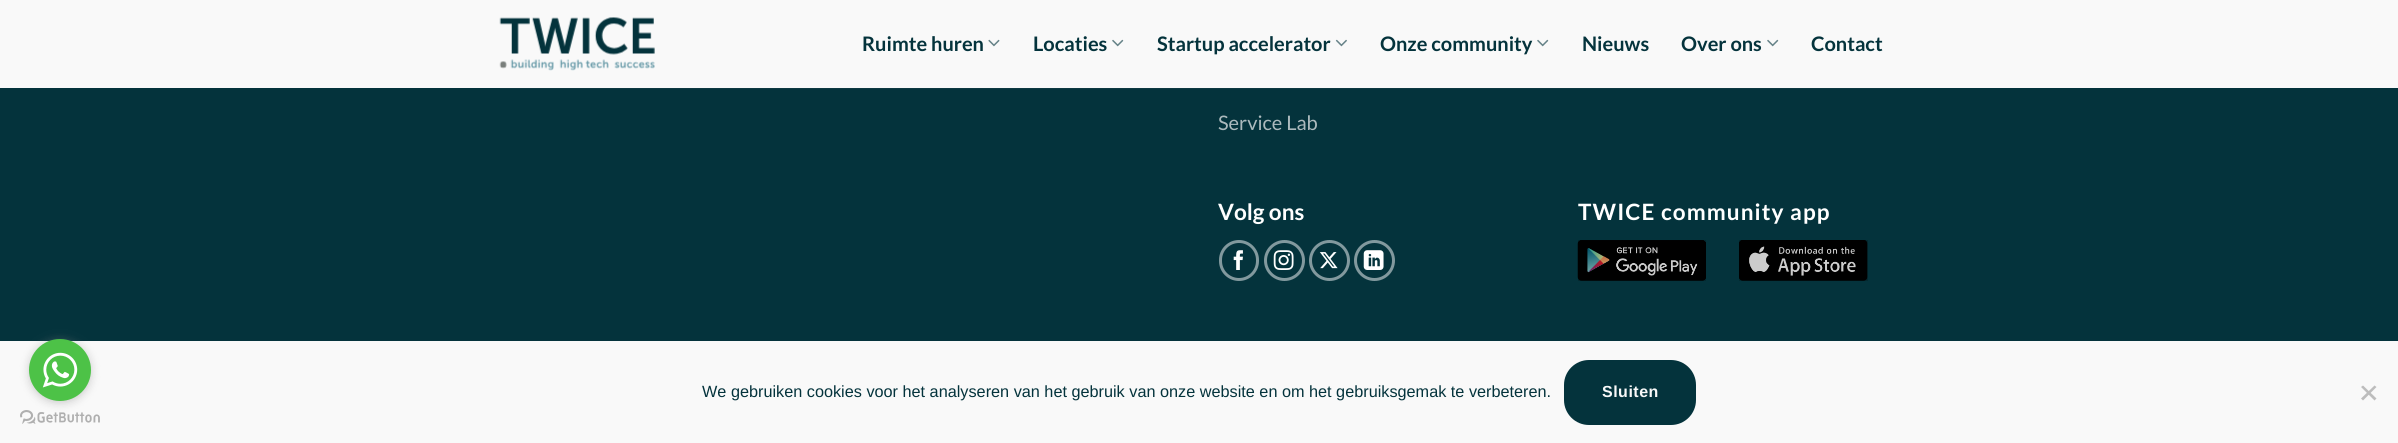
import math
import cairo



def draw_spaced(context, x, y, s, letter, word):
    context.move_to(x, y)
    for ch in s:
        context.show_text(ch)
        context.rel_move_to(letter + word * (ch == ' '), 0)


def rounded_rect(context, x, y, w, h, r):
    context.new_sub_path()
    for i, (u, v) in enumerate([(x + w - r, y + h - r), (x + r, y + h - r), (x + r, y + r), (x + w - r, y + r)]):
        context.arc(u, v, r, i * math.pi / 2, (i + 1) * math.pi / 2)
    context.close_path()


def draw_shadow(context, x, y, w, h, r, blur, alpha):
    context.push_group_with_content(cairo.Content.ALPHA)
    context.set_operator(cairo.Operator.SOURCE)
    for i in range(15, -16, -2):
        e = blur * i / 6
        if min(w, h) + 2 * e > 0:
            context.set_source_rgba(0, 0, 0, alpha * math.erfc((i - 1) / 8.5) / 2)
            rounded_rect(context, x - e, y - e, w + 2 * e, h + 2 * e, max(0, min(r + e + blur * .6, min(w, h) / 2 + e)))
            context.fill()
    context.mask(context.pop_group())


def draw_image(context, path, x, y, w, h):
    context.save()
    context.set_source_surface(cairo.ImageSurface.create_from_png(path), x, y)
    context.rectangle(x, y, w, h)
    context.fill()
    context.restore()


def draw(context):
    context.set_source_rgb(4 / 255, 51 / 255, 60 / 255)
    context.paint()
    context.set_source_rgb(249 / 255, 249 / 255, 249 / 255)
    context.rectangle(0, 0, 2398, 88)
    context.fill()
    draw_image(context, "images/1.png", 499, 17, 156, 54)
    draw_image(context, "images/2.png", 988, 39, 12, 8)
    draw_image(context, "images/3.png", 1112, 39, 12, 8)
    draw_image(context, "images/4.png", 1335, 39, 12, 8)
    draw_image(context, "images/3.png", 1537, 39, 12, 8)
    draw_image(context, "images/3.png", 1767, 39, 12, 8)
    context.set_source_rgba(108 / 255, 117 / 255, 125 / 255, 0.1)
    context.rectangle(500, 88, 1400, 1)
    context.fill()
    context.set_source_rgb(3 / 255, 41 / 255, 48 / 255)
    context.rectangle(1739, 240, 129, 41)
    context.fill()
    context.rectangle(1578, 240, 128, 41)
    context.fill()
    rounded_rect(context, 1220.5, 241.5, 37, 38, 18.5)
    context.set_source_rgb(130 / 255, 153 / 255, 158 / 255)
    context.set_line_width(3)
    context.stroke()
    draw_image(context, "images/5.png", 1233, 250, 10, 20)
    context.arc(1284.5, 260.5, 19, 0, 2 * math.pi)
    context.stroke()
    draw_image(context, "images/6.png", 1273, 250, 21, 20)
    context.arc(1329.5, 260.5, 19, 0, 2 * math.pi)
    context.stroke()
    draw_image(context, "images/7.png", 1319, 252, 19, 17)
    context.arc(1374.5, 260.5, 19, 0, 2 * math.pi)
    context.stroke()
    draw_image(context, "images/8.png", 1363, 250, 21, 20)
    draw_image(context, "images/9.png", 1577, 240, 129, 41)
    draw_image(context, "images/10.png", 1739, 240, 129, 41)
    context.set_source_rgb(249 / 255, 249 / 255, 249 / 255)
    context.rectangle(0, 341, 2398, 102)
    context.fill()
    draw_image(context, "images/12.png", 20, 410, 80, 14)
    context.set_source_rgb(136 / 255, 136 / 255, 136 / 255)
    draw_shadow(context, 29, 340, 62, 63, 31, 4.5, 0.4)
    context.set_source_rgb(77 / 255, 194 / 255, 71 / 255)
    context.arc(60, 370, 31, 0, 2 * math.pi)
    context.fill()
    draw_image(context, "images/11.png", 42, 352, 36, 36)
    context.set_source_rgb(4 / 255, 51 / 255, 60 / 255)
    rounded_rect(context, 1564, 360, 132, 65, 25)
    context.fill()
    context.set_source_rgb(189 / 255, 189 / 255, 189 / 255)
    context.new_path()
    context.move_to(2374.5, 385.5)
    context.line_to(2376.5, 387)
    context.line_to(2363, 400.5)
    context.line_to(2361, 398.5)
    context.close_path()
    context.fill()
    context.new_path()
    context.move_to(2361, 387)
    context.line_to(2363, 385.5)
    context.line_to(2376.5, 398.5)
    context.line_to(2374.5, 400.5)
    context.close_path()
    context.fill()
    context.select_font_face("Lato", cairo.FontSlant.NORMAL, cairo.FontWeight.BOLD)
    context.set_font_size(20)
    context.set_source_rgb(4 / 255, 51 / 255, 60 / 255)
    context.move_to(862, 51)
    context.show_text("Ruimte huren")
    context.move_to(1033, 51)
    context.show_text("Locaties")
    context.move_to(1157, 51)
    context.show_text("Startup accelerator")
    context.move_to(1380, 51)
    context.show_text("Onze community")
    context.move_to(1582, 51)
    context.show_text("Nieuws")
    context.move_to(1681, 51)
    context.show_text("Over ons")
    context.move_to(1811, 51)
    context.show_text("Contact")
    context.select_font_face("Lato")
    context.set_source_rgb(172 / 255, 186 / 255, 189 / 255)
    context.move_to(1218, 130)
    context.show_text("Service Lab")
    context.select_font_face("Lato", cairo.FontSlant.NORMAL, cairo.FontWeight.BOLD)
    context.set_font_size(22.5)
    context.set_source_rgb(1, 1, 1)
    context.move_to(1218, 220)
    context.show_text("Volg ons")
    draw_spaced(context, 1578, 220, "TWICE community app", 1.1, 0)
    context.select_font_face("Liberation Sans")
    context.set_font_size(16.25)
    context.set_source_rgb(4 / 255, 51 / 255, 60 / 255)
    context.move_to(702, 397)
    context.show_text("We gebruiken cookies voor het analyseren van het gebruik van onze website en om het gebruiksgemak te verbeteren.")
    context.select_font_face("Liberation Sans", cairo.FontSlant.NORMAL, cairo.FontWeight.BOLD)
    context.set_font_size(16)
    context.set_source_rgb(249 / 255, 249 / 255, 249 / 255)
    draw_spaced(context, 1602, 397, "Sluiten", 0.5, 0)


surface = cairo.ImageSurface(cairo.Format.RGB24, 2398, 443)
context = cairo.Context(surface)
options = cairo.FontOptions()
options.set_hint_metrics(cairo.HintMetrics.OFF)
options.set_hint_style(cairo.HintStyle.NONE)
context.set_font_options(options)
context.set_miter_limit(4)
draw(context)
surface.write_to_png("out.png")
